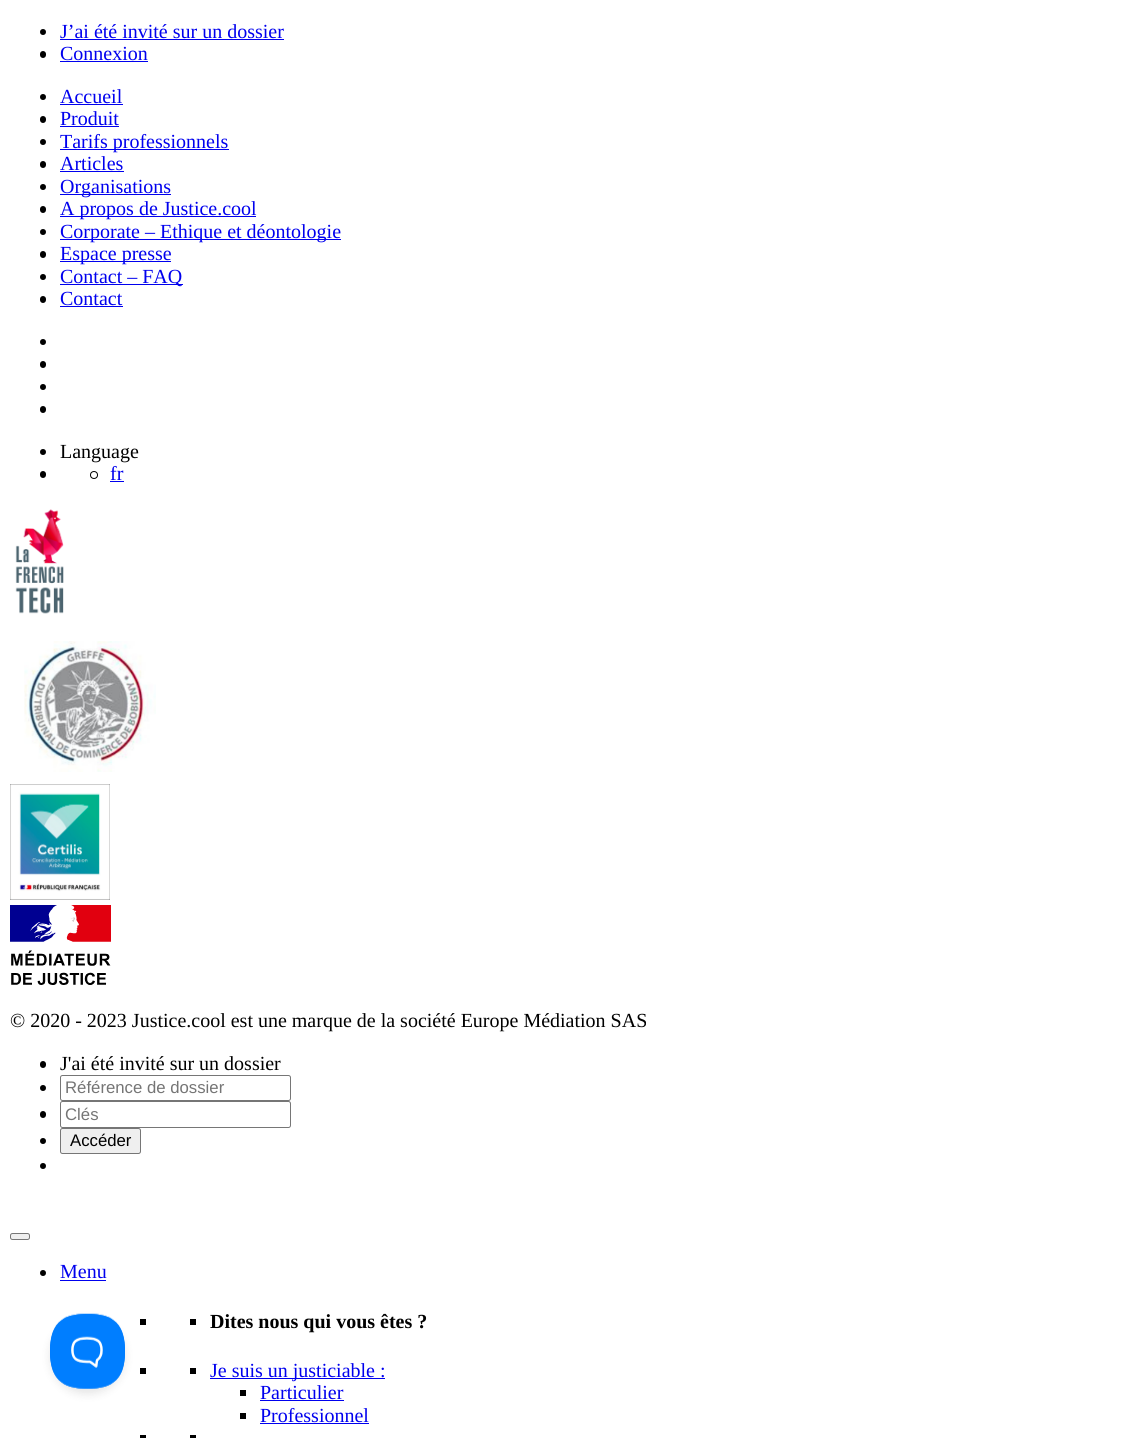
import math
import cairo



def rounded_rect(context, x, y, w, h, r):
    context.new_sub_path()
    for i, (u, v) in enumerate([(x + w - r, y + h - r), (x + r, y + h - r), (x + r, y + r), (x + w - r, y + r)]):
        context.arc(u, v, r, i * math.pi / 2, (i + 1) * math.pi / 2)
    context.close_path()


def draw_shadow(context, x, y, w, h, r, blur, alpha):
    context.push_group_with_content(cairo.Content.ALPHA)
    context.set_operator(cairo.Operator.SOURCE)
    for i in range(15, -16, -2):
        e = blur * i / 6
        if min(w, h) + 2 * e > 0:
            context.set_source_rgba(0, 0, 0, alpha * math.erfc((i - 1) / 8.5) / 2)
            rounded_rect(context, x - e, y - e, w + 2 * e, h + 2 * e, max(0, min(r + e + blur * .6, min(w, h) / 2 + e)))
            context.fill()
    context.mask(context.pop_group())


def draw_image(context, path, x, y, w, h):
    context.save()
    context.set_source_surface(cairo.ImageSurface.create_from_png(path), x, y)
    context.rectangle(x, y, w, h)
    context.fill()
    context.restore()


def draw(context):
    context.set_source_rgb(1, 1, 1)
    context.paint()
    context.set_source_rgb(0, 0, 0)
    context.arc(43, 32, 3, 0, 2 * math.pi)
    context.fill()
    context.set_source_rgb(0, 0, 238 / 255)
    context.rectangle(60, 39, 224, 1)
    context.fill()
    context.set_source_rgb(0, 0, 0)
    rounded_rect(context, 40, 51, 6, 7, 3)
    context.fill()
    context.set_source_rgb(0, 0, 238 / 255)
    context.rectangle(60, 61, 88, 1)
    context.fill()
    context.set_source_rgb(0, 0, 0)
    context.arc(43, 97, 3, 0, 2 * math.pi)
    context.fill()
    context.set_source_rgb(0, 0, 238 / 255)
    context.rectangle(60, 104, 63, 1)
    context.fill()
    context.set_source_rgb(0, 0, 0)
    rounded_rect(context, 40, 116, 6, 7, 3)
    context.fill()
    context.set_source_rgb(0, 0, 238 / 255)
    context.rectangle(60, 126, 59, 1)
    context.fill()
    context.set_source_rgb(0, 0, 0)
    context.arc(43, 142, 3, 0, 2 * math.pi)
    context.fill()
    context.set_source_rgb(0, 0, 238 / 255)
    context.rectangle(60, 149, 169, 1)
    context.fill()
    context.set_source_rgb(0, 0, 0)
    rounded_rect(context, 40, 161, 6, 7, 3)
    context.fill()
    context.set_source_rgb(0, 0, 238 / 255)
    context.rectangle(60, 171, 64, 1)
    context.fill()
    context.set_source_rgb(0, 0, 0)
    context.arc(43, 187, 3, 0, 2 * math.pi)
    context.fill()
    context.set_source_rgb(0, 0, 238 / 255)
    context.rectangle(60, 194, 111, 1)
    context.fill()
    context.set_source_rgb(0, 0, 0)
    rounded_rect(context, 40, 206, 6, 7, 3)
    context.fill()
    context.set_source_rgb(0, 0, 238 / 255)
    context.rectangle(60, 216, 196, 1)
    context.fill()
    context.set_source_rgb(0, 0, 0)
    context.arc(43, 232, 3, 0, 2 * math.pi)
    context.fill()
    context.set_source_rgb(0, 0, 238 / 255)
    context.rectangle(60, 239, 281, 1)
    context.fill()
    context.set_source_rgb(0, 0, 0)
    rounded_rect(context, 40, 251, 6, 7, 3)
    context.fill()
    context.set_source_rgb(0, 0, 238 / 255)
    context.rectangle(60, 261, 111, 1)
    context.fill()
    context.set_source_rgb(0, 0, 0)
    context.arc(43, 277, 3, 0, 2 * math.pi)
    context.fill()
    context.set_source_rgb(0, 0, 238 / 255)
    context.rectangle(60, 284, 123, 1)
    context.fill()
    context.set_source_rgb(0, 0, 0)
    rounded_rect(context, 40, 296, 6, 7, 3)
    context.fill()
    context.set_source_rgb(0, 0, 238 / 255)
    context.rectangle(60, 306, 63, 1)
    context.fill()
    context.set_source_rgb(0, 0, 0)
    context.arc(43, 342, 3, 0, 2 * math.pi)
    context.fill()
    rounded_rect(context, 40, 361, 6, 7, 3)
    context.fill()
    context.arc(43, 387, 3, 0, 2 * math.pi)
    context.fill()
    rounded_rect(context, 40, 406, 6, 7, 3)
    context.fill()
    context.arc(43, 452, 3, 0, 2 * math.pi)
    context.fill()
    rounded_rect(context, 40, 471, 6, 7, 3)
    context.fill()
    context.arc(94, 475, 3.5, 0, 2 * math.pi)
    context.set_line_width(1)
    context.stroke()
    context.set_source_rgb(0, 0, 238 / 255)
    context.rectangle(110, 481, 14, 1)
    context.fill()
    draw_image(context, "images/1.png", 15, 509, 49, 105)
    draw_image(context, "images/2.png", 24, 641, 132, 131)
    draw_image(context, "images/3.png", 10, 784, 100, 116)
    draw_image(context, "images/4.png", 10, 905, 101, 80)
    context.set_source_rgb(0, 0, 0)
    rounded_rect(context, 40, 1061, 6, 7, 3)
    context.fill()
    context.arc(43, 1088, 3, 0, 2 * math.pi)
    context.fill()
    rounded_rect(context, 60.5, 1075.5, 230, 25, 2)
    context.set_source_rgb(118 / 255, 118 / 255, 118 / 255)
    context.stroke()
    context.set_source_rgb(0, 0, 0)
    rounded_rect(context, 40, 1111, 6, 7, 3)
    context.fill()
    rounded_rect(context, 60.5, 1101.5, 230, 26, 2)
    context.set_source_rgb(118 / 255, 118 / 255, 118 / 255)
    context.stroke()
    context.set_source_rgb(0, 0, 0)
    context.arc(43, 1141, 3, 0, 2 * math.pi)
    context.fill()
    context.set_source_rgb(239 / 255, 239 / 255, 239 / 255)
    rounded_rect(context, 60.5, 1128.5, 80, 25, 2)
    context.fill_preserve()
    context.set_source_rgb(118 / 255, 118 / 255, 118 / 255)
    context.stroke()
    context.set_source_rgb(0, 0, 0)
    context.arc(43, 1166, 3, 0, 2 * math.pi)
    context.fill()
    context.set_source_rgb(239 / 255, 239 / 255, 239 / 255)
    rounded_rect(context, 10.5, 1233.5, 19, 6, 2)
    context.fill_preserve()
    context.set_source_rgb(118 / 255, 118 / 255, 118 / 255)
    context.stroke()
    context.set_source_rgb(0, 0, 0)
    context.arc(43, 1273, 3, 0, 2 * math.pi)
    context.fill()
    context.set_source_rgb(0, 0, 238 / 255)
    context.rectangle(60, 1280, 46, 1)
    context.fill()
    context.set_source_rgb(0, 0, 0)
    context.rectangle(140, 1319, 6, 6)
    context.fill()
    context.rectangle(190, 1319, 6, 6)
    context.fill()
    context.rectangle(140, 1368, 6, 6)
    context.fill()
    context.rectangle(190, 1368, 6, 6)
    context.fill()
    context.set_source_rgb(0, 0, 238 / 255)
    context.rectangle(210, 1378, 175, 1)
    context.fill()
    context.set_source_rgb(0, 0, 0)
    context.rectangle(240, 1390, 6, 6)
    context.fill()
    context.set_source_rgb(0, 0, 238 / 255)
    context.rectangle(260, 1400, 84, 1)
    context.fill()
    context.set_source_rgb(0, 0, 0)
    context.rectangle(240, 1413, 6, 6)
    context.fill()
    context.set_source_rgb(0, 0, 238 / 255)
    context.rectangle(260, 1423, 109, 1)
    context.fill()
    context.set_source_rgb(0, 0, 0)
    context.rectangle(140, 1435, 6, 3)
    context.fill()
    context.rectangle(190, 1435, 6, 3)
    context.fill()
    context.set_source_rgb(0, 0, 0)
    draw_shadow(context, 50, 1319, 75, 75, 37.5, 4.5, 0.1)
    draw_image(context, "images/5.png", 50, 1313, 75, 76)
    context.select_font_face("Liberation Serif")
    context.set_font_size(20)
    context.set_source_rgb(0, 0, 238 / 255)
    context.move_to(60, 38)
    context.show_text("J’ai été invité sur un dossier")
    context.move_to(60, 60)
    context.show_text("Connexion")
    context.move_to(60, 103)
    context.show_text("Accueil")
    context.move_to(60, 125)
    context.show_text("Produit")
    context.move_to(60, 148)
    context.show_text("Tarifs professionnels")
    context.move_to(60, 170)
    context.show_text("Articles")
    context.move_to(60, 193)
    context.show_text("Organisations")
    context.move_to(60, 215)
    context.show_text("A propos de Justice.cool")
    context.move_to(60, 238)
    context.show_text("Corporate – Ethique et déontologie")
    context.move_to(60, 260)
    context.show_text("Espace presse")
    context.move_to(60, 283)
    context.show_text("Contact – FAQ")
    context.move_to(60, 305)
    context.show_text("Contact")
    context.set_source_rgb(0, 0, 0)
    context.move_to(60, 458)
    context.show_text("Language")
    context.set_source_rgb(0, 0, 238 / 255)
    context.move_to(110, 480)
    context.show_text("fr")
    context.set_source_rgb(0, 0, 0)
    context.move_to(10, 1027)
    context.show_text("© 2020 - 2023 Justice.cool est une marque de la société Europe Médiation SAS")
    context.move_to(60, 1070)
    context.show_text("J'ai été invité sur un dossier")
    context.select_font_face("Liberation Sans")
    context.set_font_size(16.75)
    context.set_source_rgb(117 / 255, 117 / 255, 117 / 255)
    context.move_to(65, 1093)
    context.show_text("Référence de dossier")
    context.move_to(65, 1120)
    context.show_text("Clés")
    context.set_source_rgb(0, 0, 0)
    context.move_to(70, 1146)
    context.show_text("Accéder")
    context.select_font_face("Liberation Serif")
    context.set_font_size(20)
    context.set_source_rgb(0, 0, 238 / 255)
    context.move_to(60, 1278)
    context.show_text("Menu")
    context.select_font_face("Liberation Serif", cairo.FontSlant.NORMAL, cairo.FontWeight.BOLD)
    context.set_source_rgb(0, 0, 0)
    context.move_to(210, 1328)
    context.show_text("Dites nous qui vous êtes ?")
    context.select_font_face("Liberation Serif")
    context.set_source_rgb(0, 0, 238 / 255)
    context.move_to(210, 1377)
    context.show_text("Je suis un justiciable :")
    context.move_to(260, 1399)
    context.show_text("Particulier")
    context.move_to(260, 1422)
    context.show_text("Professionnel")


surface = cairo.ImageSurface(cairo.Format.RGB24, 1127, 1438)
context = cairo.Context(surface)
options = cairo.FontOptions()
options.set_hint_metrics(cairo.HintMetrics.OFF)
options.set_hint_style(cairo.HintStyle.NONE)
context.set_font_options(options)
context.set_miter_limit(4)
draw(context)
surface.write_to_png("out.png")
